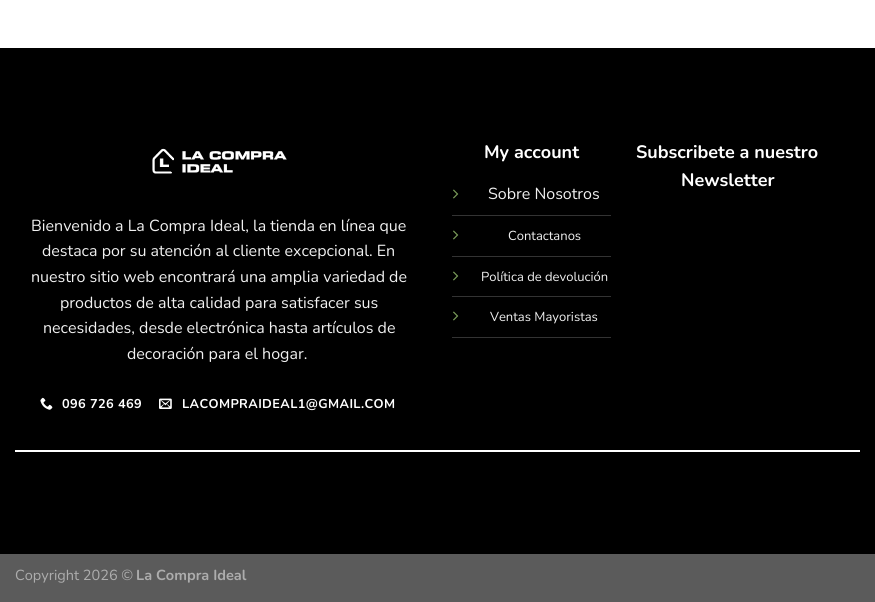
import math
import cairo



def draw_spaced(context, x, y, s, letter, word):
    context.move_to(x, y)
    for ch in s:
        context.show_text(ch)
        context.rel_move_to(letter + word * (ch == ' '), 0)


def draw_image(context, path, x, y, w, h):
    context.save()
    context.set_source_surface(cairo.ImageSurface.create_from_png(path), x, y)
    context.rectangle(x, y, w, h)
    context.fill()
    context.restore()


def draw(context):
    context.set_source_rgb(1, 1, 1)
    context.paint()
    context.set_source_rgb(0, 0, 0)
    context.rectangle(0, 48, 875, 506)
    context.fill()
    draw_image(context, "images/1.png", 152, 148, 135, 26)
    draw_image(context, "images/2.png", 40, 397, 13, 13)
    draw_image(context, "images/3.png", 159, 398, 13, 11)
    context.set_source_rgb(51 / 255, 51 / 255, 51 / 255)
    context.rectangle(452, 215, 159, 1)
    context.fill()
    draw_image(context, "images/4.png", 453, 189, 6, 10)
    context.rectangle(452, 256, 159, 1)
    context.fill()
    draw_image(context, "images/4.png", 453, 230, 6, 10)
    context.rectangle(452, 296, 159, 1)
    context.fill()
    draw_image(context, "images/4.png", 453, 271, 6, 10)
    context.rectangle(452, 337, 159, 1)
    context.fill()
    draw_image(context, "images/4.png", 453, 311, 6, 10)
    context.set_source_rgb(1, 1, 1)
    context.rectangle(15, 450, 845, 2)
    context.fill()
    context.set_source_rgb(91 / 255, 91 / 255, 91 / 255)
    context.rectangle(0, 554, 875, 48)
    context.fill()
    context.select_font_face("Nunito")
    context.set_font_size(16)
    context.set_source_rgb(241 / 255, 241 / 255, 241 / 255)
    context.move_to(31, 231)
    context.show_text("Bienvenido a La Compra Ideal, la tienda en línea que")
    context.move_to(42, 256)
    context.show_text("destaca por su atención al cliente excepcional. En")
    context.move_to(31, 282)
    context.show_text("nuestro sitio web encontrará una amplia variedad de")
    context.move_to(60, 308)
    context.show_text("productos de alta calidad para satisfacer sus")
    context.move_to(43, 333)
    context.show_text("necesidades, desde electrónica hasta artículos de")
    context.move_to(127, 359)
    context.show_text("decoración para el hogar.")
    context.select_font_face("Nunito", cairo.FontSlant.NORMAL, cairo.FontWeight.BOLD)
    context.set_font_size(12.75)
    context.set_source_rgb(1, 1, 1)
    draw_spaced(context, 62, 408, "096 726 469", 0.4, 0)
    draw_spaced(context, 182, 408, "LACOMPRAIDEAL1@GMAIL.COM", 0.4, 0)
    context.set_font_size(18)
    context.move_to(484, 158)
    context.show_text("My account")
    context.select_font_face("Nunito")
    context.set_font_size(16)
    context.set_source_rgb(241 / 255, 241 / 255, 241 / 255)
    context.move_to(488, 199)
    context.show_text("Sobre Nosotros")
    context.set_font_size(13)
    context.move_to(508, 240)
    context.show_text("Contactanos")
    context.move_to(481, 281)
    context.show_text("Política de devolución")
    context.move_to(490, 321)
    context.show_text("Ventas Mayoristas")
    context.select_font_face("Nunito", cairo.FontSlant.NORMAL, cairo.FontWeight.BOLD)
    context.set_font_size(18)
    context.set_source_rgb(1, 1, 1)
    context.move_to(636, 158)
    context.show_text("Subscribete a nuestro")
    context.move_to(681, 186)
    context.show_text("Newsletter")
    context.select_font_face("Nunito")
    context.set_font_size(14.5)
    context.set_source_rgb(173 / 255, 173 / 255, 173 / 255)
    context.move_to(15, 580)
    context.show_text("Copyright 2026 ©")
    context.select_font_face("Nunito", cairo.FontSlant.NORMAL, cairo.FontWeight.BOLD)
    context.move_to(136, 580)
    context.show_text("La Compra Ideal")


surface = cairo.ImageSurface(cairo.Format.RGB24, 875, 602)
context = cairo.Context(surface)
options = cairo.FontOptions()
options.set_hint_metrics(cairo.HintMetrics.OFF)
options.set_hint_style(cairo.HintStyle.NONE)
context.set_font_options(options)
context.set_miter_limit(4)
draw(context)
surface.write_to_png("out.png")
